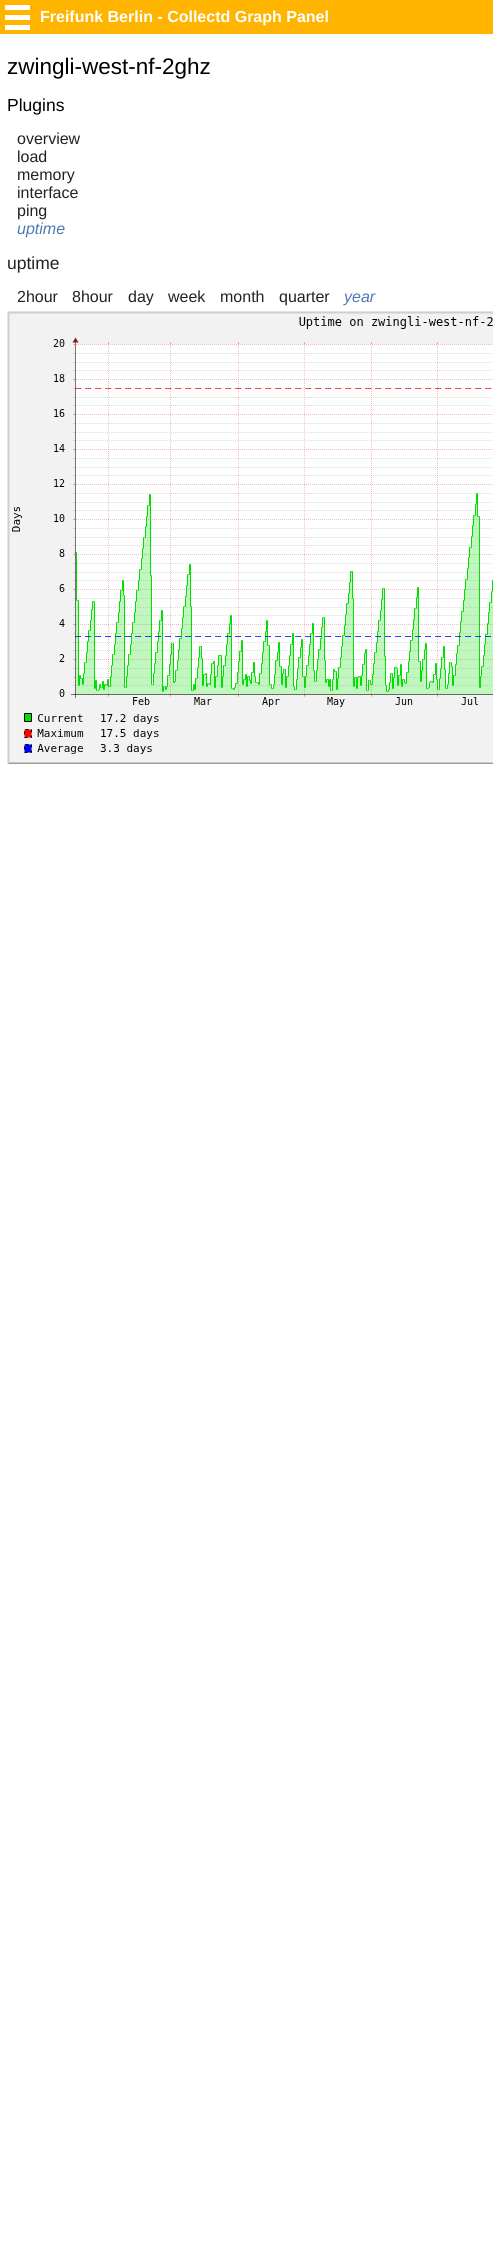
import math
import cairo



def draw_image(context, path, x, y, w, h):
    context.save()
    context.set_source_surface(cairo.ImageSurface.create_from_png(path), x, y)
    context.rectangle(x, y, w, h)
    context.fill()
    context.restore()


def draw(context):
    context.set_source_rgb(1, 1, 1)
    context.paint()
    context.set_source_rgb(1, 180 / 255, 0)
    context.rectangle(0, 0, 493, 34)
    context.fill()
    context.set_source_rgb(1, 1, 1)
    context.rectangle(5, 5, 25, 5)
    context.fill()
    context.rectangle(5, 25, 25, 5)
    context.fill()
    context.rectangle(5, 15, 25, 5)
    context.fill()
    draw_image(context, "images/1.png", 7, 311, 486, 453)
    context.select_font_face("Liberation Sans", cairo.FontSlant.NORMAL, cairo.FontWeight.BOLD)
    context.set_font_size(16)
    context.move_to(40, 22)
    context.show_text("Freifunk Berlin - Collectd Graph Panel")
    context.select_font_face("Liberation Sans")
    context.set_font_size(22.5)
    context.set_source_rgb(0, 0, 0)
    context.move_to(7, 74)
    context.show_text("zwingli-west-nf-2ghz")
    context.set_font_size(17.5)
    context.move_to(7, 111)
    context.show_text("Plugins")
    context.set_font_size(16)
    context.set_source_rgb(34 / 255, 34 / 255, 34 / 255)
    context.move_to(17, 144)
    context.show_text("overview")
    context.move_to(17, 162)
    context.show_text("load")
    context.move_to(17, 180)
    context.show_text("memory")
    context.move_to(17, 198)
    context.show_text("interface")
    context.move_to(17, 216)
    context.show_text("ping")
    context.select_font_face("Liberation Sans", cairo.FontSlant.ITALIC)
    context.set_source_rgb(77 / 255, 121 / 255, 181 / 255)
    context.move_to(17, 234)
    context.show_text("uptime")
    context.select_font_face("Liberation Sans")
    context.set_font_size(17.5)
    context.set_source_rgb(34 / 255, 34 / 255, 34 / 255)
    context.move_to(7, 269)
    context.show_text("uptime")
    context.set_font_size(16)
    context.move_to(17, 302)
    context.show_text("2hour")
    context.move_to(72, 302)
    context.show_text("8hour")
    context.move_to(128, 302)
    context.show_text("day")
    context.move_to(168, 302)
    context.show_text("week")
    context.move_to(220, 302)
    context.show_text("month")
    context.move_to(279, 302)
    context.show_text("quarter")
    context.select_font_face("Liberation Sans", cairo.FontSlant.ITALIC)
    context.set_source_rgb(77 / 255, 121 / 255, 181 / 255)
    context.move_to(344, 302)
    context.show_text("year")


surface = cairo.ImageSurface(cairo.Format.RGB24, 493, 2254)
context = cairo.Context(surface)
options = cairo.FontOptions()
options.set_hint_metrics(cairo.HintMetrics.OFF)
options.set_hint_style(cairo.HintStyle.NONE)
context.set_font_options(options)
context.set_miter_limit(4)
draw(context)
surface.write_to_png("out.png")
